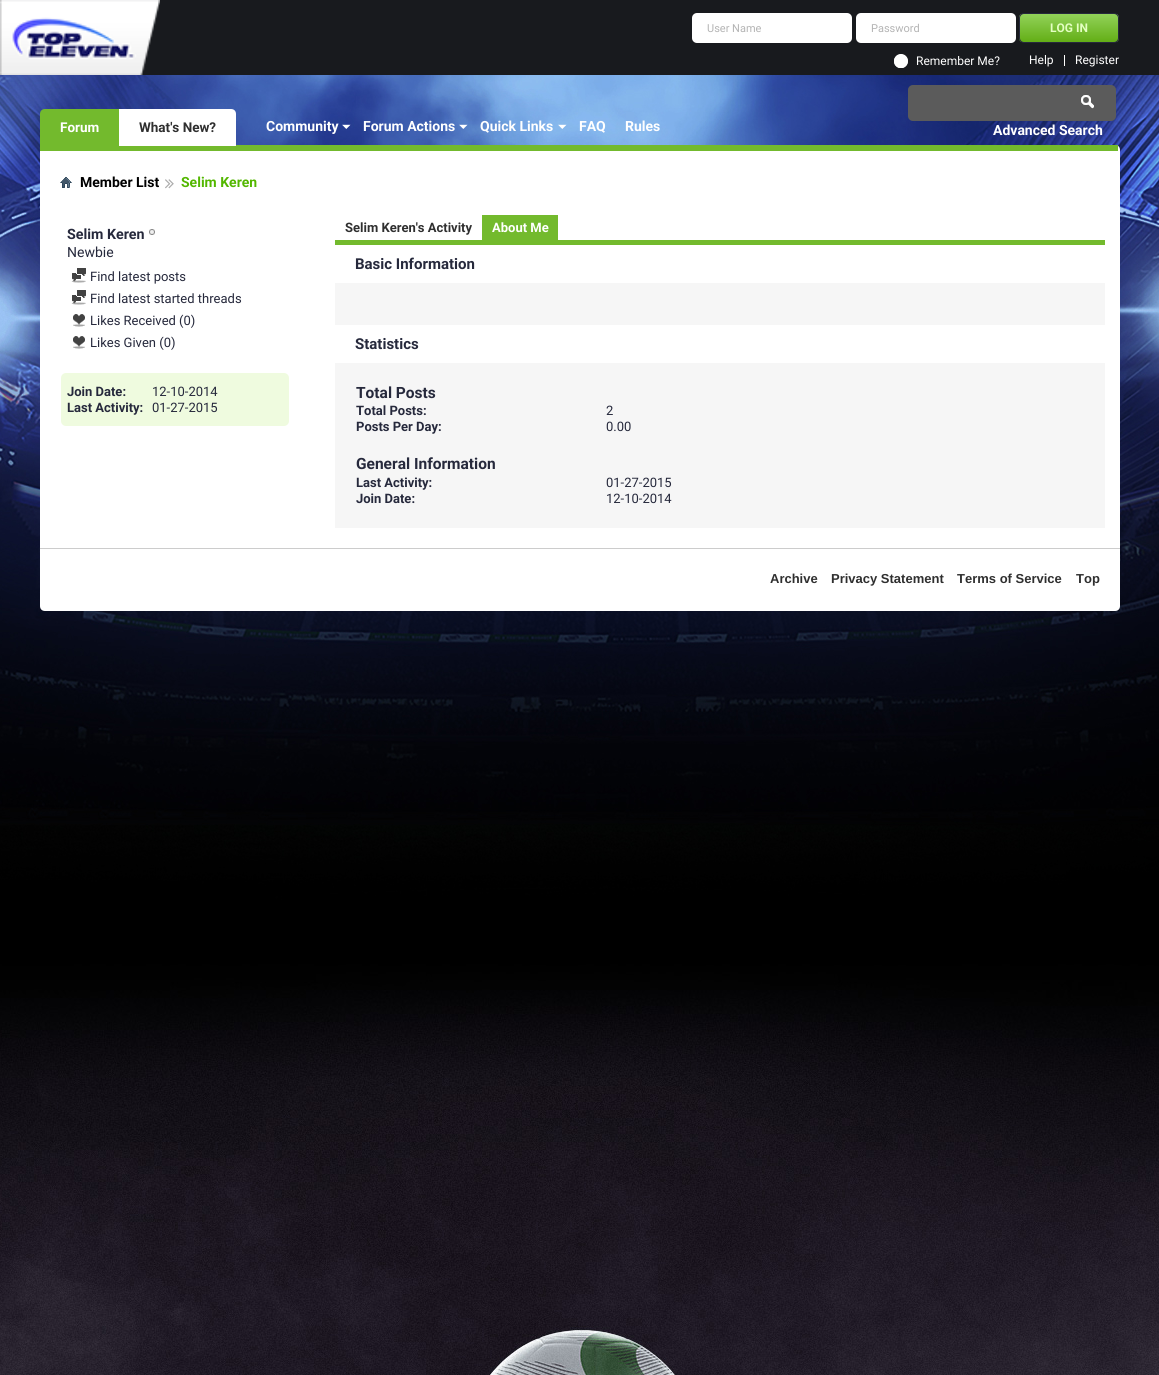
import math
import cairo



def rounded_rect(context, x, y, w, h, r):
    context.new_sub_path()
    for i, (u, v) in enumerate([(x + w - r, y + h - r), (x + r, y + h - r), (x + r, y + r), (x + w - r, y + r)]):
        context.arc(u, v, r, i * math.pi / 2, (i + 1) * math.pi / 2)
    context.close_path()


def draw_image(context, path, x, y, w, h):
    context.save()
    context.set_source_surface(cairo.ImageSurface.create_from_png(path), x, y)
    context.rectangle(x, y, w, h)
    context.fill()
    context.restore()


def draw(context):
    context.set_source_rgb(1, 1, 1)
    context.paint()
    draw_image(context, "images/1.png", 0, 75, 1159, 1300)
    context.set_source_rgb(24 / 255, 26 / 255, 30 / 255)
    context.rectangle(0, 0, 1159, 75)
    context.fill()
    draw_image(context, "images/2.png", 0, 0, 160, 75)
    context.set_source_rgb(1, 1, 1)
    rounded_rect(context, 692, 13, 160, 30, 5)
    context.fill()
    rounded_rect(context, 856, 13, 160, 30, 5)
    context.fill()
    context.save()
    rounded_rect(context, 1019, 13, 100, 30, 5)
    context.clip()
    gradient = cairo.LinearGradient(1069, 14, 1069, 42)
    gradient.add_color_stop_rgba(0, 146 / 255, 210 / 255, 89 / 255, 1)
    gradient.add_color_stop_rgba(1, 99 / 255, 174 / 255, 22 / 255, 1)
    context.set_source(gradient)
    context.rectangle(1019, 14, 100, 28)
    context.fill()
    context.restore()
    rounded_rect(context, 1019.5, 13.5, 99, 29, 4.5)
    context.set_source_rgb(38 / 255, 41 / 255, 60 / 255)
    context.set_line_width(1)
    context.stroke()
    draw_image(context, "images/3.png", 894, 54, 14, 14)
    context.set_source_rgb(1, 1, 1)
    context.rectangle(1064, 55, 1, 11)
    context.fill()
    context.new_path()
    context.move_to(40, 145)
    context.line_to(1115, 145)
    context.curve_to(1118, 145, 1120, 147, 1120, 150)
    context.line_to(1120, 606)
    context.curve_to(1120, 609, 1118, 611, 1115, 611)
    context.line_to(45, 611)
    context.curve_to(42, 611, 40, 609, 40, 606)
    context.close_path()
    context.fill()
    context.set_source_rgb(115 / 255, 186 / 255, 45 / 255)
    context.rectangle(40, 145, 1078, 6)
    context.fill()
    context.new_path()
    context.move_to(45, 109)
    context.line_to(119, 109)
    context.line_to(119, 146)
    context.line_to(40, 146)
    context.line_to(40, 114)
    context.curve_to(40, 111, 42, 109, 45, 109)
    context.close_path()
    context.fill()
    context.set_source_rgb(1, 1, 1)
    context.new_path()
    context.move_to(119, 109)
    context.line_to(231, 109)
    context.curve_to(234, 109, 236, 111, 236, 114)
    context.line_to(236, 146)
    context.line_to(119, 146)
    context.close_path()
    context.fill()
    draw_image(context, "images/4.png", 342, 124, 9, 5)
    draw_image(context, "images/5.png", 459, 124, 9, 5)
    draw_image(context, "images/6.png", 558, 124, 9, 5)
    context.set_source_rgb(91 / 255, 91 / 255, 91 / 255)
    rounded_rect(context, 908, 85, 208, 36, 5)
    context.fill()
    draw_image(context, "images/7.png", 1081, 95, 13, 14)
    draw_image(context, "images/8.png", 60, 177, 12, 11)
    draw_image(context, "images/9.png", 165, 179, 9, 10)
    draw_image(context, "images/10.png", 149, 229, 6, 6)
    draw_image(context, "images/11.png", 71, 268, 15, 15)
    draw_image(context, "images/11.png", 71, 290, 15, 15)
    draw_image(context, "images/12.png", 73, 314, 12, 13)
    draw_image(context, "images/12.png", 73, 336, 12, 13)
    context.set_source_rgb(239 / 255, 251 / 255, 223 / 255)
    rounded_rect(context, 61, 373, 228, 53, 5)
    context.fill()
    context.set_source_rgb(115 / 255, 186 / 255, 45 / 255)
    context.rectangle(482, 215, 76, 25)
    context.fill()
    context.rectangle(335, 240, 770, 5)
    context.fill()
    context.set_source_rgb(246 / 255, 246 / 255, 246 / 255)
    context.rectangle(335, 283, 770, 42)
    context.fill()
    context.rectangle(335, 363, 770, 165)
    context.fill()
    context.set_source_rgb(204 / 255, 204 / 255, 204 / 255)
    context.rectangle(40, 548, 1080, 1)
    context.fill()
    context.select_font_face("Roboto")
    context.set_font_size(11)
    context.set_source_rgb(180 / 255, 180 / 255, 180 / 255)
    context.move_to(707, 32)
    context.show_text("User Name")
    context.move_to(871, 32)
    context.show_text("Password")
    context.select_font_face("Roboto", cairo.FontSlant.NORMAL, cairo.FontWeight.BOLD)
    context.set_font_size(12)
    context.set_source_rgb(228 / 255, 1, 195 / 255)
    context.move_to(1050, 32)
    context.show_text("LOG IN")
    context.select_font_face("Roboto")
    context.set_source_rgb(1, 1, 1)
    context.move_to(916, 65)
    context.show_text("Remember Me?")
    context.move_to(1029, 64)
    context.show_text("Help")
    context.move_to(1075, 64)
    context.show_text("Register")
    context.select_font_face("Roboto", cairo.FontSlant.NORMAL, cairo.FontWeight.BOLD)
    context.set_font_size(13.5)
    context.move_to(60, 132)
    context.show_text("Forum")
    context.set_source_rgb(47 / 255, 47 / 255, 47 / 255)
    context.move_to(139, 132)
    context.show_text("What's New?")
    context.set_font_size(14)
    context.set_source_rgb(1, 1, 1)
    context.move_to(266, 131)
    context.show_text("Community")
    context.move_to(363, 131)
    context.show_text("Forum Actions")
    context.move_to(480, 131)
    context.show_text("Quick Links")
    context.move_to(579, 131)
    context.show_text("FAQ")
    context.move_to(625, 131)
    context.show_text("Rules")
    context.move_to(993, 135)
    context.show_text("Advanced Search")
    context.set_source_rgb(0, 0, 0)
    context.move_to(80, 187)
    context.show_text("Member List")
    context.set_source_rgb(83 / 255, 183 / 255, 0)
    context.move_to(181, 187)
    context.show_text("Selim Keren")
    context.set_font_size(14.25)
    context.set_source_rgb(38 / 255, 41 / 255, 60 / 255)
    context.move_to(67, 239)
    context.show_text("Selim Keren")
    context.select_font_face("Roboto")
    context.set_font_size(14)
    context.move_to(67, 257)
    context.show_text("Newbie")
    context.set_font_size(13)
    context.move_to(90, 281)
    context.show_text("Find latest posts")
    context.move_to(90, 303)
    context.show_text("Find latest started threads")
    context.move_to(90, 325)
    context.show_text("Likes Received (0)")
    context.move_to(90, 347)
    context.show_text("Likes Given (0)")
    context.select_font_face("Roboto", cairo.FontSlant.NORMAL, cairo.FontWeight.BOLD)
    context.move_to(67, 396)
    context.show_text("Join Date:")
    context.select_font_face("Roboto")
    context.move_to(152, 396)
    context.show_text("12-10-2014")
    context.select_font_face("Roboto", cairo.FontSlant.NORMAL, cairo.FontWeight.BOLD)
    context.move_to(67, 412)
    context.show_text("Last Activity:")
    context.select_font_face("Roboto")
    context.move_to(152, 412)
    context.show_text("01-27-2015")
    context.select_font_face("Roboto", cairo.FontSlant.NORMAL, cairo.FontWeight.BOLD)
    context.set_source_rgb(47 / 255, 47 / 255, 47 / 255)
    context.move_to(345, 232)
    context.show_text("Selim Keren's Activity")
    context.set_source_rgb(1, 1, 1)
    context.move_to(492, 232)
    context.show_text("About Me")
    context.set_font_size(15)
    context.set_source_rgb(38 / 255, 41 / 255, 60 / 255)
    context.move_to(355, 269)
    context.show_text("Basic Information")
    context.move_to(355, 349)
    context.show_text("Statistics")
    context.set_font_size(15.5)
    context.move_to(356, 398)
    context.show_text("Total Posts")
    context.set_font_size(13)
    context.move_to(356, 415)
    context.show_text("Total Posts:")
    context.select_font_face("Roboto")
    context.move_to(606, 415)
    context.show_text("2")
    context.select_font_face("Roboto", cairo.FontSlant.NORMAL, cairo.FontWeight.BOLD)
    context.move_to(356, 431)
    context.show_text("Posts Per Day:")
    context.select_font_face("Roboto")
    context.move_to(606, 431)
    context.show_text("0.00")
    context.select_font_face("Roboto", cairo.FontSlant.NORMAL, cairo.FontWeight.BOLD)
    context.set_font_size(15.5)
    context.move_to(356, 469)
    context.show_text("General Information")
    context.set_font_size(13)
    context.move_to(356, 487)
    context.show_text("Last Activity:")
    context.select_font_face("Roboto")
    context.move_to(606, 487)
    context.show_text("01-27-2015")
    context.select_font_face("Roboto", cairo.FontSlant.NORMAL, cairo.FontWeight.BOLD)
    context.move_to(356, 503)
    context.show_text("Join Date:")
    context.select_font_face("Roboto")
    context.move_to(606, 503)
    context.show_text("12-10-2014")
    context.select_font_face("Liberation Sans", cairo.FontSlant.NORMAL, cairo.FontWeight.BOLD)
    context.set_source_rgb(47 / 255, 47 / 255, 47 / 255)
    context.move_to(770, 583)
    context.show_text("Archive")
    context.move_to(831, 583)
    context.show_text("Privacy Statement")
    context.move_to(957, 583)
    context.show_text("Terms of Service")
    context.move_to(1076, 583)
    context.show_text("Top")


surface = cairo.ImageSurface(cairo.Format.RGB24, 1159, 1375)
context = cairo.Context(surface)
options = cairo.FontOptions()
options.set_hint_metrics(cairo.HintMetrics.OFF)
options.set_hint_style(cairo.HintStyle.NONE)
context.set_font_options(options)
context.set_miter_limit(4)
draw(context)
surface.write_to_png("out.png")
